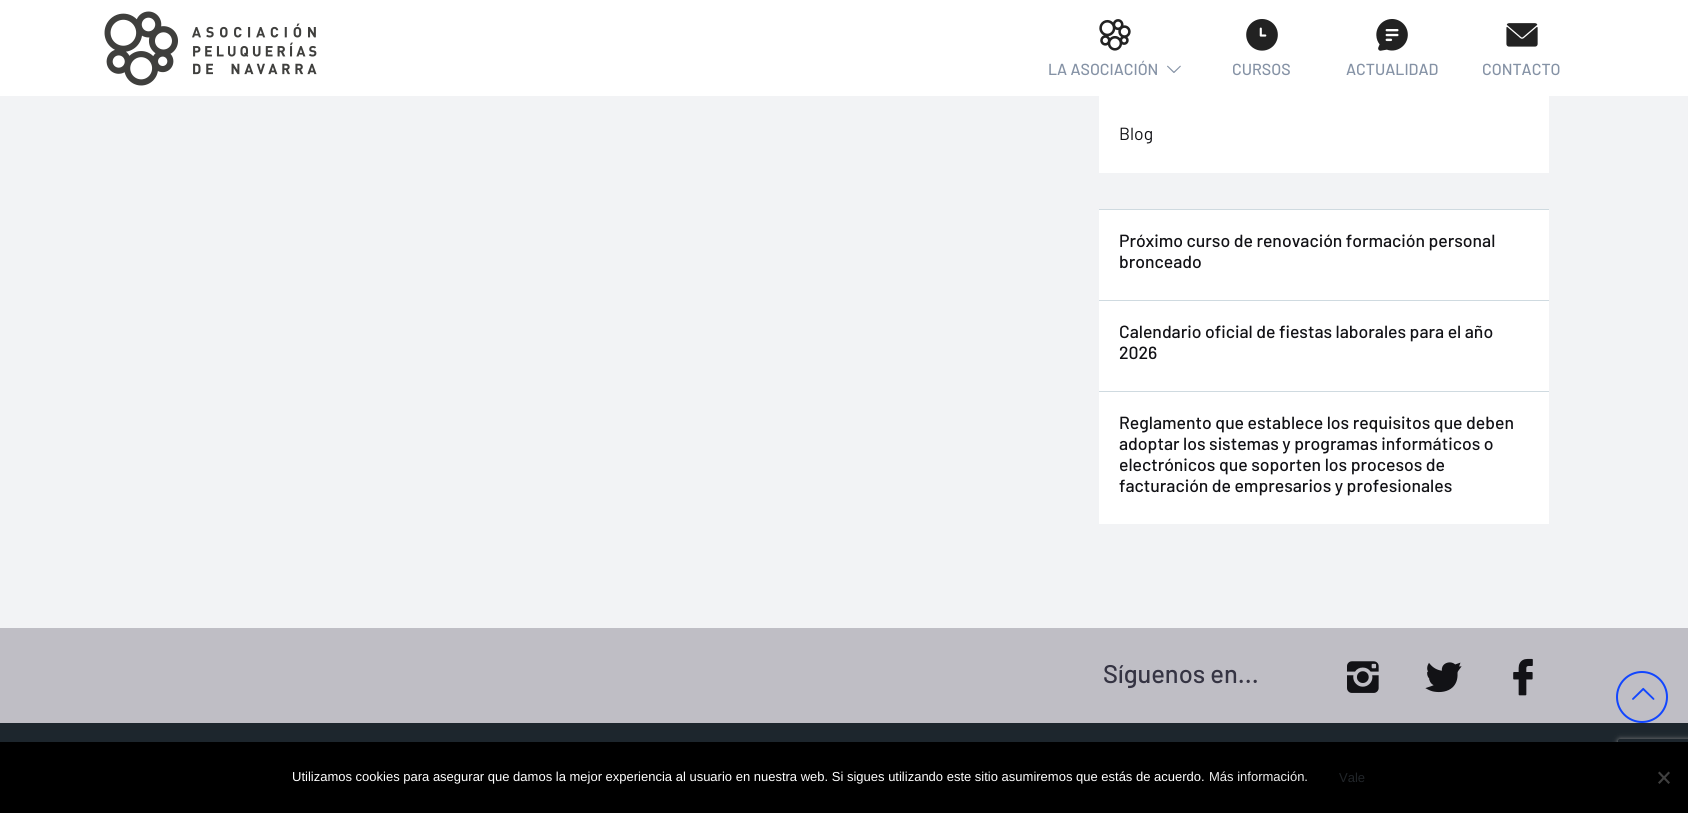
import math
import cairo



def rounded_rect(context, x, y, w, h, r):
    context.new_sub_path()
    for i, (u, v) in enumerate([(x + w - r, y + h - r), (x + r, y + h - r), (x + r, y + r), (x + w - r, y + r)]):
        context.arc(u, v, r, i * math.pi / 2, (i + 1) * math.pi / 2)
    context.close_path()


def draw_shadow(context, x, y, w, h, r, blur, alpha):
    context.push_group_with_content(cairo.Content.ALPHA)
    context.set_operator(cairo.Operator.SOURCE)
    for i in range(15, -16, -2):
        e = blur * i / 6
        if min(w, h) + 2 * e > 0:
            context.set_source_rgba(0, 0, 0, alpha * math.erfc((i - 1) / 8.5) / 2)
            rounded_rect(context, x - e, y - e, w + 2 * e, h + 2 * e, max(0, min(r + e + blur * .6, min(w, h) / 2 + e)))
            context.fill()
    context.mask(context.pop_group())


def draw_image(context, path, x, y, w, h):
    context.save()
    context.set_source_surface(cairo.ImageSurface.create_from_png(path), x, y)
    context.rectangle(x, y, w, h)
    context.fill()
    context.restore()


def draw(context):
    context.set_source_rgb(242 / 255, 243 / 255, 245 / 255)
    context.paint()
    context.set_source_rgb(1, 1, 1)
    context.rectangle(0, 0, 1688, 96)
    context.fill()
    draw_image(context, "images/1.png", 104, 11, 213, 75)
    draw_image(context, "images/2.png", 1099, 19, 32, 32)
    draw_image(context, "images/3.png", 1167, 65, 14, 8)
    draw_image(context, "images/4.png", 1246, 19, 32, 32)
    draw_image(context, "images/5.png", 1376, 19, 32, 32)
    draw_image(context, "images/6.png", 1506, 23, 32, 24)
    context.rectangle(1099, 96, 450, 77)
    context.fill()
    context.rectangle(1099, 210, 450, 314)
    context.fill()
    context.set_source_rgb(207 / 255, 218 / 255, 224 / 255)
    context.rectangle(1099, 209, 450, 1)
    context.fill()
    context.rectangle(1099, 300, 450, 1)
    context.fill()
    context.rectangle(1099, 391, 450, 1)
    context.fill()
    context.set_source_rgb(191 / 255, 190 / 255, 197 / 255)
    context.rectangle(0, 628, 1688, 95)
    context.fill()
    draw_image(context, "images/7.png", 1347, 661, 32, 32)
    draw_image(context, "images/8.png", 1425, 662, 37, 31)
    draw_image(context, "images/9.png", 1513, 658, 20, 38)
    context.set_source_rgb(29 / 255, 38 / 255, 45 / 255)
    context.rectangle(0, 723, 1688, 19)
    context.fill()
    context.arc(1642, 697, 25, 0, 2 * math.pi)
    context.set_source_rgb(17 / 255, 70 / 255, 1)
    context.stroke()
    draw_image(context, "images/10.png", 1632, 687, 23, 13)
    context.save()
    context.set_fill_rule(cairo.FillRule.EVEN_ODD)
    context.new_path()
    context.move_to(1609, 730)
    context.line_to(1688, 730)
    context.line_to(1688, 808)
    context.line_to(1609, 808)
    context.close_path()
    context.move_to(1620, 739)
    context.line_to(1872, 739)
    context.curve_to(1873, 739, 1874, 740, 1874, 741)
    context.line_to(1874, 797)
    context.curve_to(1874, 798, 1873, 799, 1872, 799)
    context.line_to(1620, 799)
    context.curve_to(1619, 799, 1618, 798, 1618, 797)
    context.line_to(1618, 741)
    context.curve_to(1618, 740, 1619, 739, 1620, 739)
    context.close_path()
    context.clip()
    context.set_source_rgb(128 / 255, 128 / 255, 128 / 255)
    draw_shadow(context, 1618, 739, 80, 60, 2, 2.5, 1)
    context.restore()
    context.set_source_rgb(0, 0, 0)
    context.rectangle(0, 742, 1688, 71)
    context.fill()
    context.set_source_rgb(64 / 255, 64 / 255, 64 / 255)
    context.new_path()
    context.move_to(1668.5, 771.5)
    context.line_to(1670, 773)
    context.line_to(1659.5, 784)
    context.line_to(1658, 782.5)
    context.close_path()
    context.fill()
    context.new_path()
    context.move_to(1658, 773)
    context.line_to(1659.5, 771.5)
    context.line_to(1670, 782.5)
    context.line_to(1668.5, 784)
    context.close_path()
    context.fill()
    context.select_font_face("Barlow Medium")
    context.set_font_size(16)
    context.set_source_rgb(133 / 255, 146 / 255, 165 / 255)
    context.move_to(1048, 75)
    context.show_text("LA ASOCIACIÓN")
    context.move_to(1232, 75)
    context.show_text("CURSOS")
    context.move_to(1346, 75)
    context.show_text("ACTUALIDAD")
    context.move_to(1482, 75)
    context.show_text("CONTACTO")
    context.select_font_face("Barlow")
    context.set_font_size(17.6)
    context.set_source_rgb(18 / 255, 18 / 255, 22 / 255)
    context.move_to(1119, 140)
    context.show_text("Blog")
    context.select_font_face("Barlow Medium")
    context.move_to(1119, 247)
    context.show_text("Próximo curso de renovación formación personal")
    context.move_to(1119, 268)
    context.show_text("bronceado")
    context.move_to(1119, 338)
    context.show_text("Calendario oficial de fiestas laborales para el año")
    context.move_to(1119, 359)
    context.show_text("2026")
    context.move_to(1119, 429)
    context.show_text("Reglamento que establece los requisitos que deben")
    context.move_to(1119, 450)
    context.show_text("adoptar los sistemas y programas informáticos o")
    context.move_to(1119, 471)
    context.show_text("electrónicos que soporten los procesos de")
    context.move_to(1119, 492)
    context.show_text("facturación de empresarios y profesionales")
    context.set_font_size(25.5)
    context.set_source_rgb(53 / 255, 52 / 255, 67 / 255)
    context.move_to(1103, 683)
    context.show_text("Síguenos en...")
    context.select_font_face("Liberation Sans")
    context.set_font_size(13)
    context.set_source_rgb(1, 1, 1)
    context.move_to(292, 781)
    context.show_text("Utilizamos cookies para asegurar que damos la mejor experiencia al usuario en nuestra web. Si sigues utilizando este sitio asumiremos que estás de acuerdo.")
    context.set_source_rgb(238 / 255, 238 / 255, 238 / 255)
    context.move_to(1209, 781)
    context.show_text("Más información.")
    context.set_source_rgb(33 / 255, 37 / 255, 41 / 255)
    context.move_to(1339, 782)
    context.show_text("Vale")


surface = cairo.ImageSurface(cairo.Format.RGB24, 1688, 813)
context = cairo.Context(surface)
options = cairo.FontOptions()
options.set_hint_metrics(cairo.HintMetrics.OFF)
options.set_hint_style(cairo.HintStyle.NONE)
context.set_font_options(options)
context.set_miter_limit(4)
draw(context)
surface.write_to_png("out.png")
